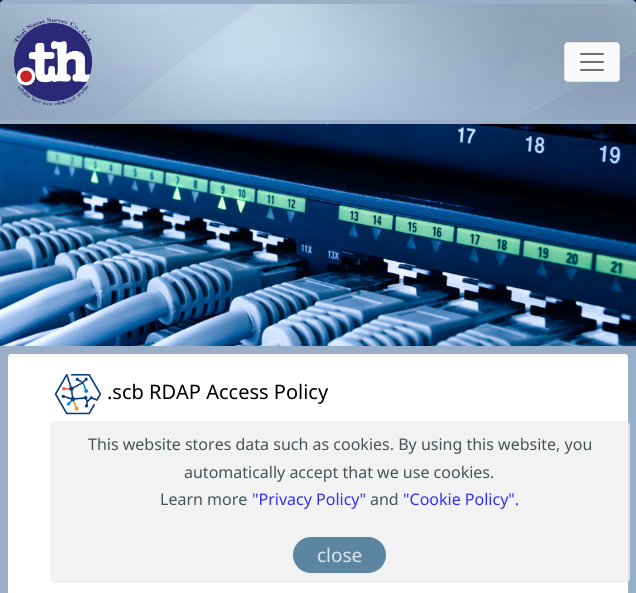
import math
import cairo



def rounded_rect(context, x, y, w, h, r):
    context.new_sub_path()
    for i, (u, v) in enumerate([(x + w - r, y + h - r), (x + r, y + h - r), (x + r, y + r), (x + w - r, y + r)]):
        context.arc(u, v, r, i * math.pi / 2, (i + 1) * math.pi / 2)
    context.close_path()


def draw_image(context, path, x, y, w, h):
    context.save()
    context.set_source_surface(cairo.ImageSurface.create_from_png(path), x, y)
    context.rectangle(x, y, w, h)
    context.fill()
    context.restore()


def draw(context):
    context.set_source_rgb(0, 27 / 255, 70 / 255)
    context.paint()
    context.set_source_rgb(152 / 255, 175 / 255, 199 / 255)
    context.new_path()
    context.move_to(4, 0)
    context.line_to(632, 0)
    context.curve_to(634, 0, 636, 2, 636, 4)
    context.line_to(636, 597)
    context.line_to(0, 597)
    context.line_to(0, 4)
    context.curve_to(0, 2, 2, 0, 4, 0)
    context.close_path()
    context.fill()
    draw_image(context, "images/1.png", 0, 4, 636, 116)
    draw_image(context, "images/2.png", 13, 17, 80, 89)
    context.set_source_rgb(248 / 255, 249 / 255, 250 / 255)
    rounded_rect(context, 564, 42, 56, 40, 4)
    context.fill()
    rounded_rect(context, 564.5, 42.5, 55, 39, 3.5)
    context.set_source_rgba(0, 0, 0, 0.1)
    context.set_line_width(1)
    context.stroke()
    draw_image(context, "images/3.png", 580, 53, 24, 18)
    draw_image(context, "images/4.png", 0, 124, 636, 222)
    context.set_source_rgb(1, 1, 1)
    rounded_rect(context, 8, 354, 620, 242, 3)
    context.fill()
    draw_image(context, "images/5.png", 54, 374, 48, 41)
    context.set_source_rgba(238 / 255, 238 / 255, 238 / 255, 0.8)
    rounded_rect(context, 50, 421, 580, 162, 5)
    context.fill()
    context.set_source_rgba(56 / 255, 106 / 255, 142 / 255, 0.8)
    rounded_rect(context, 293, 537, 93, 36, 18)
    context.fill()
    context.select_font_face("Noto Sans")
    context.set_font_size(20)
    context.set_source_rgb(0, 0, 0)
    context.move_to(107, 399)
    context.show_text(".scb RDAP Access Policy")
    context.set_font_size(16)
    context.set_source_rgb(70 / 255, 83 / 255, 89 / 255)
    context.move_to(88, 450)
    context.show_text("This website stores data such as cookies. By using this website, you")
    context.move_to(184, 478)
    context.show_text("automatically accept that we use cookies.")
    context.move_to(160, 505)
    context.show_text("Learn more")
    context.set_source_rgb(47 / 255, 47 / 255, 251 / 255)
    context.move_to(252, 505)
    context.show_text("\"Privacy Policy\"")
    context.set_source_rgb(70 / 255, 83 / 255, 89 / 255)
    context.move_to(370, 505)
    context.show_text("and")
    context.set_source_rgb(47 / 255, 47 / 255, 251 / 255)
    context.move_to(403, 505)
    context.show_text("\"Cookie Policy\".")
    context.set_font_size(19)
    context.set_source_rgb(222 / 255, 230 / 255, 236 / 255)
    context.move_to(317, 562)
    context.show_text("close")


surface = cairo.ImageSurface(cairo.Format.RGB24, 636, 593)
context = cairo.Context(surface)
options = cairo.FontOptions()
options.set_hint_metrics(cairo.HintMetrics.OFF)
options.set_hint_style(cairo.HintStyle.NONE)
context.set_font_options(options)
context.set_miter_limit(4)
draw(context)
surface.write_to_png("out.png")
